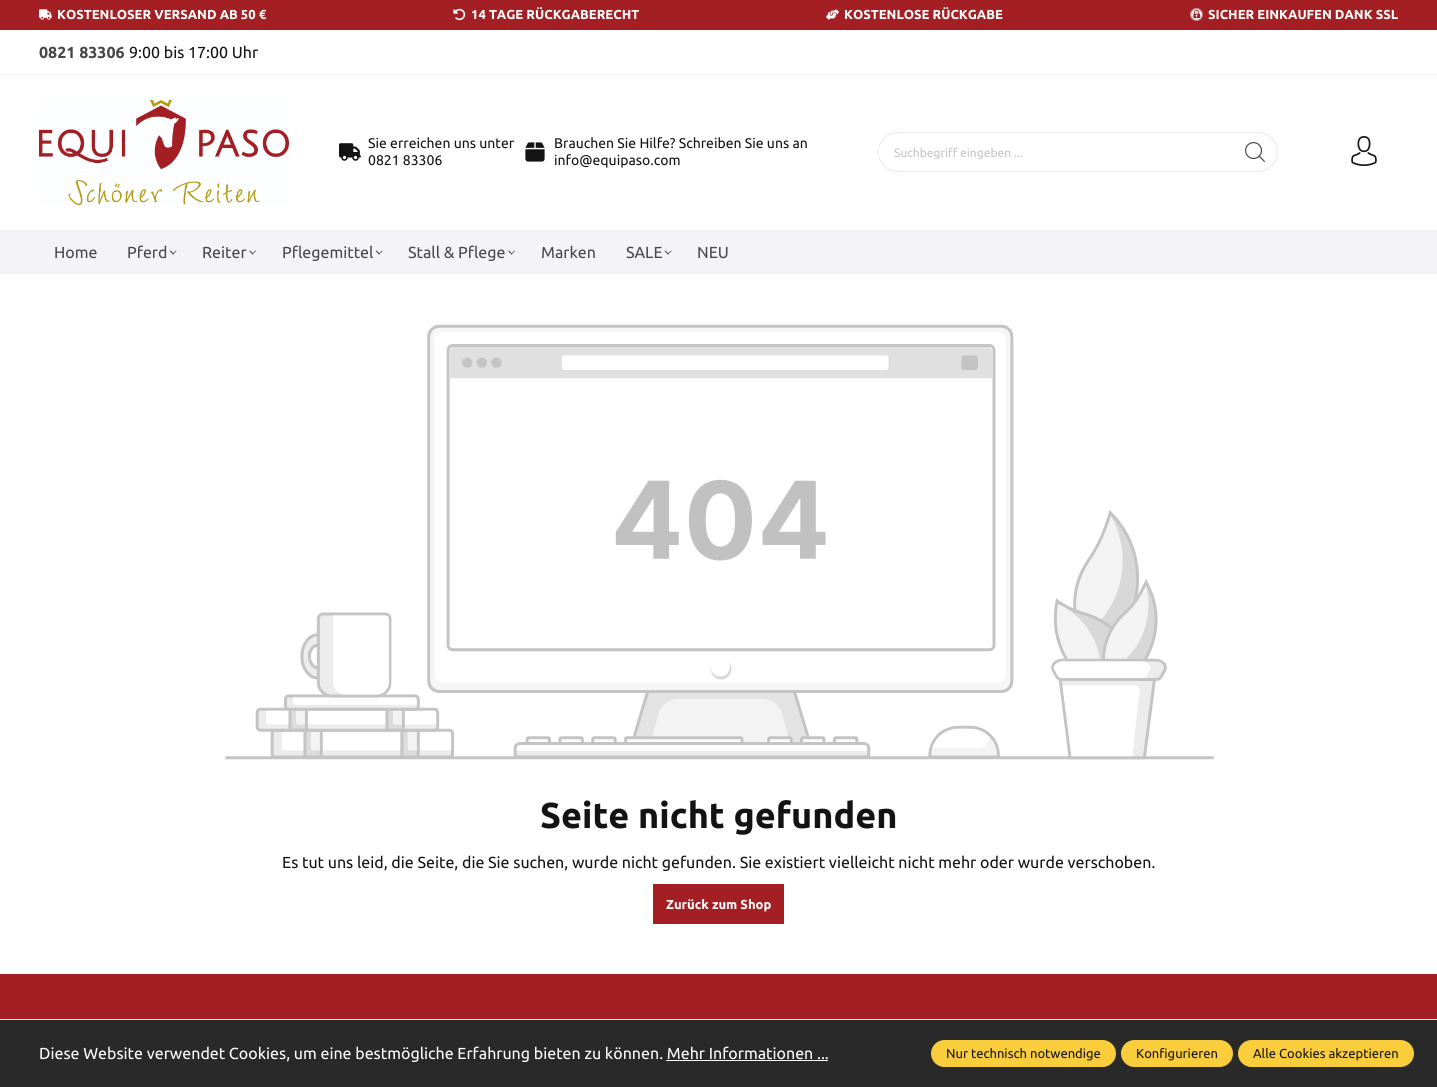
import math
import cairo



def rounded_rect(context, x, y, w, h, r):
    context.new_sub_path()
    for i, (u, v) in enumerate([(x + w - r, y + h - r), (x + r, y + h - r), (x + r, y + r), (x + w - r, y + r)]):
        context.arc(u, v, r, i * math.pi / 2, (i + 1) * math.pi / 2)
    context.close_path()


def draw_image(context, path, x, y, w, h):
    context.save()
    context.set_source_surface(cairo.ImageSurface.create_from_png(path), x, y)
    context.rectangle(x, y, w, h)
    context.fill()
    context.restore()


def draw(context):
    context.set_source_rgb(1, 1, 1)
    context.paint()
    context.set_source_rgb(163 / 255, 31 / 255, 35 / 255)
    context.rectangle(0, 0, 1437, 30)
    context.fill()
    draw_image(context, "images/1.png", 39, 9, 13, 11)
    draw_image(context, "images/2.png", 453, 8, 13, 13)
    draw_image(context, "images/3.png", 826, 9, 13, 11)
    draw_image(context, "images/4.png", 1190, 8, 13, 13)
    context.set_source_rgb(244 / 255, 243 / 255, 247 / 255)
    context.rectangle(0, 74, 1437, 1)
    context.fill()
    draw_image(context, "images/5.png", 39, 100, 250, 105)
    draw_image(context, "images/6.png", 339, 143, 22, 18)
    draw_image(context, "images/7.png", 525, 142, 20, 20)
    context.new_path()
    context.move_to(898, 132.5)
    context.line_to(1233.5, 132.5)
    context.line_to(1233.5, 171.5)
    context.line_to(898, 171.5)
    context.curve_to(887, 171.5, 878.5, 163, 878.5, 152)
    context.curve_to(878.5, 141, 887, 132.5, 898, 132.5)
    context.close_path()
    context.set_source_rgb(236 / 255, 236 / 255, 236 / 255)
    context.set_line_width(1)
    context.stroke()
    context.set_source_rgb(1, 1, 1)
    context.new_path()
    context.move_to(1233, 132)
    context.line_to(1258, 132)
    context.curve_to(1269, 132, 1278, 141, 1278, 152)
    context.curve_to(1278, 163, 1269, 172, 1258, 172)
    context.line_to(1233, 172)
    context.close_path()
    context.fill()
    context.set_source_rgb(236 / 255, 236 / 255, 236 / 255)
    context.set_fill_rule(cairo.FillRule.EVEN_ODD)
    context.new_path()
    context.move_to(1233, 132)
    context.line_to(1258, 132)
    context.curve_to(1269, 132, 1278, 141, 1278, 152)
    context.curve_to(1278, 163, 1269, 172, 1258, 172)
    context.line_to(1233, 172)
    context.close_path()
    context.move_to(1233, 133)
    context.line_to(1258, 133)
    context.curve_to(1268, 133, 1277, 142, 1277, 152)
    context.curve_to(1277, 162, 1268, 171, 1258, 171)
    context.line_to(1233, 171)
    context.close_path()
    context.fill()
    draw_image(context, "images/8.png", 1245, 142, 20, 20)
    draw_image(context, "images/9.png", 1351, 136, 26, 30)
    context.set_source_rgb(244 / 255, 243 / 255, 247 / 255)
    context.rectangle(0, 230, 1437, 44)
    context.fill()
    context.set_source_rgb(72 / 255, 72 / 255, 72 / 255)
    context.set_fill_rule(cairo.FillRule.WINDING)
    context.new_path()
    context.move_to(176, 250.5)
    context.line_to(176.5, 251)
    context.line_to(173, 254.5)
    context.line_to(172.5, 254)
    context.close_path()
    context.fill()
    context.new_path()
    context.move_to(170.5, 250.5)
    context.line_to(174, 254)
    context.line_to(173, 254.5)
    context.line_to(169.5, 251)
    context.close_path()
    context.fill()
    context.new_path()
    context.move_to(255.5, 250.5)
    context.line_to(256, 251)
    context.line_to(252.5, 254.5)
    context.line_to(252, 254)
    context.close_path()
    context.fill()
    context.new_path()
    context.move_to(250, 250.5)
    context.line_to(253.5, 254)
    context.line_to(252.5, 254.5)
    context.line_to(249, 251)
    context.close_path()
    context.fill()
    context.new_path()
    context.move_to(382, 250.5)
    context.line_to(382.5, 251)
    context.line_to(379, 254.5)
    context.line_to(378.5, 254)
    context.close_path()
    context.fill()
    context.new_path()
    context.move_to(376.5, 250.5)
    context.line_to(380, 254)
    context.line_to(379, 254.5)
    context.line_to(375.5, 251)
    context.close_path()
    context.fill()
    context.new_path()
    context.move_to(514.5, 250.5)
    context.line_to(515, 251)
    context.line_to(511.5, 254.5)
    context.line_to(511, 254)
    context.close_path()
    context.fill()
    context.new_path()
    context.move_to(509, 250.5)
    context.line_to(512.5, 254)
    context.line_to(511.5, 254.5)
    context.line_to(508, 251)
    context.close_path()
    context.fill()
    context.new_path()
    context.move_to(671, 250.5)
    context.line_to(671.5, 251)
    context.line_to(668, 254.5)
    context.line_to(667.5, 254)
    context.close_path()
    context.fill()
    context.new_path()
    context.move_to(665.5, 250.5)
    context.line_to(669, 254)
    context.line_to(668, 254.5)
    context.line_to(664.5, 251)
    context.close_path()
    context.fill()
    draw_image(context, "images/10.png", 225, 324, 989, 436)
    context.set_source_rgb(163 / 255, 31 / 255, 35 / 255)
    context.rectangle(653, 884, 131, 40)
    context.fill()
    context.rectangle(0, 974, 1437, 45)
    context.fill()
    context.set_source_rgb(41 / 255, 41 / 255, 41 / 255)
    context.rectangle(0, 1020, 1437, 67)
    context.fill()
    context.set_source_rgb(236 / 255, 236 / 255, 231 / 255)
    context.rectangle(0, 1019, 1437, 1)
    context.fill()
    context.set_source_rgb(1, 1, 1)
    context.rectangle(666, 1060, 162, 1)
    context.fill()
    context.set_source_rgb(249 / 255, 205 / 255, 59 / 255)
    rounded_rect(context, 931.5, 1040.5, 184, 26, 13)
    context.fill_preserve()
    context.stroke()
    rounded_rect(context, 1121.5, 1040.5, 111, 26, 13)
    context.fill_preserve()
    context.stroke()
    rounded_rect(context, 1238.5, 1040.5, 175, 26, 13)
    context.fill_preserve()
    context.stroke()
    context.select_font_face("Ubuntu", cairo.FontSlant.NORMAL, cairo.FontWeight.BOLD)
    context.set_font_size(13)
    context.set_source_rgb(1, 1, 1)
    context.move_to(57, 19)
    context.show_text("KOSTENLOSER VERSAND AB 50 €")
    context.move_to(471, 19)
    context.show_text("14 TAGE RÜCKGABERECHT")
    context.move_to(844, 19)
    context.show_text("KOSTENLOSE RÜCKGABE")
    context.move_to(1208, 19)
    context.show_text("SICHER EINKAUFEN DANK SSL")
    context.set_font_size(16)
    context.set_source_rgb(72 / 255, 72 / 255, 72 / 255)
    context.move_to(39, 58)
    context.show_text("0821 83306")
    context.select_font_face("Ubuntu")
    context.set_source_rgb(19 / 255, 19 / 255, 19 / 255)
    context.move_to(129, 58)
    context.show_text("9:00 bis 17:00 Uhr")
    context.set_font_size(14)
    context.move_to(368, 148)
    context.show_text("Sie erreichen uns unter")
    context.move_to(368, 165)
    context.show_text("0821 83306")
    context.move_to(554, 148)
    context.show_text("Brauchen Sie Hilfe? Schreiben Sie uns an")
    context.move_to(554, 165)
    context.show_text("info@equipaso.com")
    context.save()
    context.rectangle(894, 146, 324, 13)
    context.clip()
    context.set_font_size(12)
    context.set_source_rgb(195 / 255, 195 / 255, 195 / 255)
    context.move_to(894, 157)
    context.show_text("Suchbegriff eingeben ...")
    context.restore()
    context.set_font_size(16)
    context.set_source_rgb(72 / 255, 72 / 255, 72 / 255)
    context.move_to(54, 258)
    context.show_text("Home")
    context.move_to(127, 258)
    context.show_text("Pferd")
    context.move_to(202, 258)
    context.show_text("Reiter")
    context.move_to(282, 258)
    context.show_text("Pflegemittel")
    context.move_to(408, 258)
    context.show_text("Stall & Pflege")
    context.move_to(541, 258)
    context.show_text("Marken")
    context.move_to(626, 258)
    context.show_text("SALE")
    context.move_to(697, 258)
    context.show_text("NEU")
    context.select_font_face("Ubuntu", cairo.FontSlant.NORMAL, cairo.FontWeight.BOLD)
    context.set_font_size(36)
    context.set_source_rgb(19 / 255, 19 / 255, 19 / 255)
    context.move_to(540, 828)
    context.show_text("Seite nicht gefunden")
    context.select_font_face("Ubuntu")
    context.set_font_size(16)
    context.move_to(282, 868)
    context.show_text("Es tut uns leid, die Seite, die Sie suchen, wurde nicht gefunden. Sie existiert vielleicht nicht mehr oder wurde verschoben.")
    context.select_font_face("Ubuntu", cairo.FontSlant.NORMAL, cairo.FontWeight.BOLD)
    context.set_font_size(13)
    context.set_source_rgb(1, 1, 1)
    context.move_to(666, 909)
    context.show_text("Zurück zum Shop")
    context.select_font_face("Ubuntu")
    context.set_font_size(16)
    context.move_to(39, 1059)
    context.show_text("Diese Website verwendet Cookies, um eine bestmögliche Erfahrung bieten zu können. Mehr Informationen ...")
    context.set_font_size(13)
    context.set_source_rgb(19 / 255, 19 / 255, 19 / 255)
    context.move_to(946, 1058)
    context.show_text("Nur technisch notwendige")
    context.move_to(1136, 1058)
    context.show_text("Konfigurieren")
    context.move_to(1253, 1058)
    context.show_text("Alle Cookies akzeptieren")


surface = cairo.ImageSurface(cairo.Format.RGB24, 1437, 1087)
context = cairo.Context(surface)
options = cairo.FontOptions()
options.set_hint_metrics(cairo.HintMetrics.OFF)
options.set_hint_style(cairo.HintStyle.NONE)
context.set_font_options(options)
context.set_miter_limit(4)
draw(context)
surface.write_to_png("out.png")
